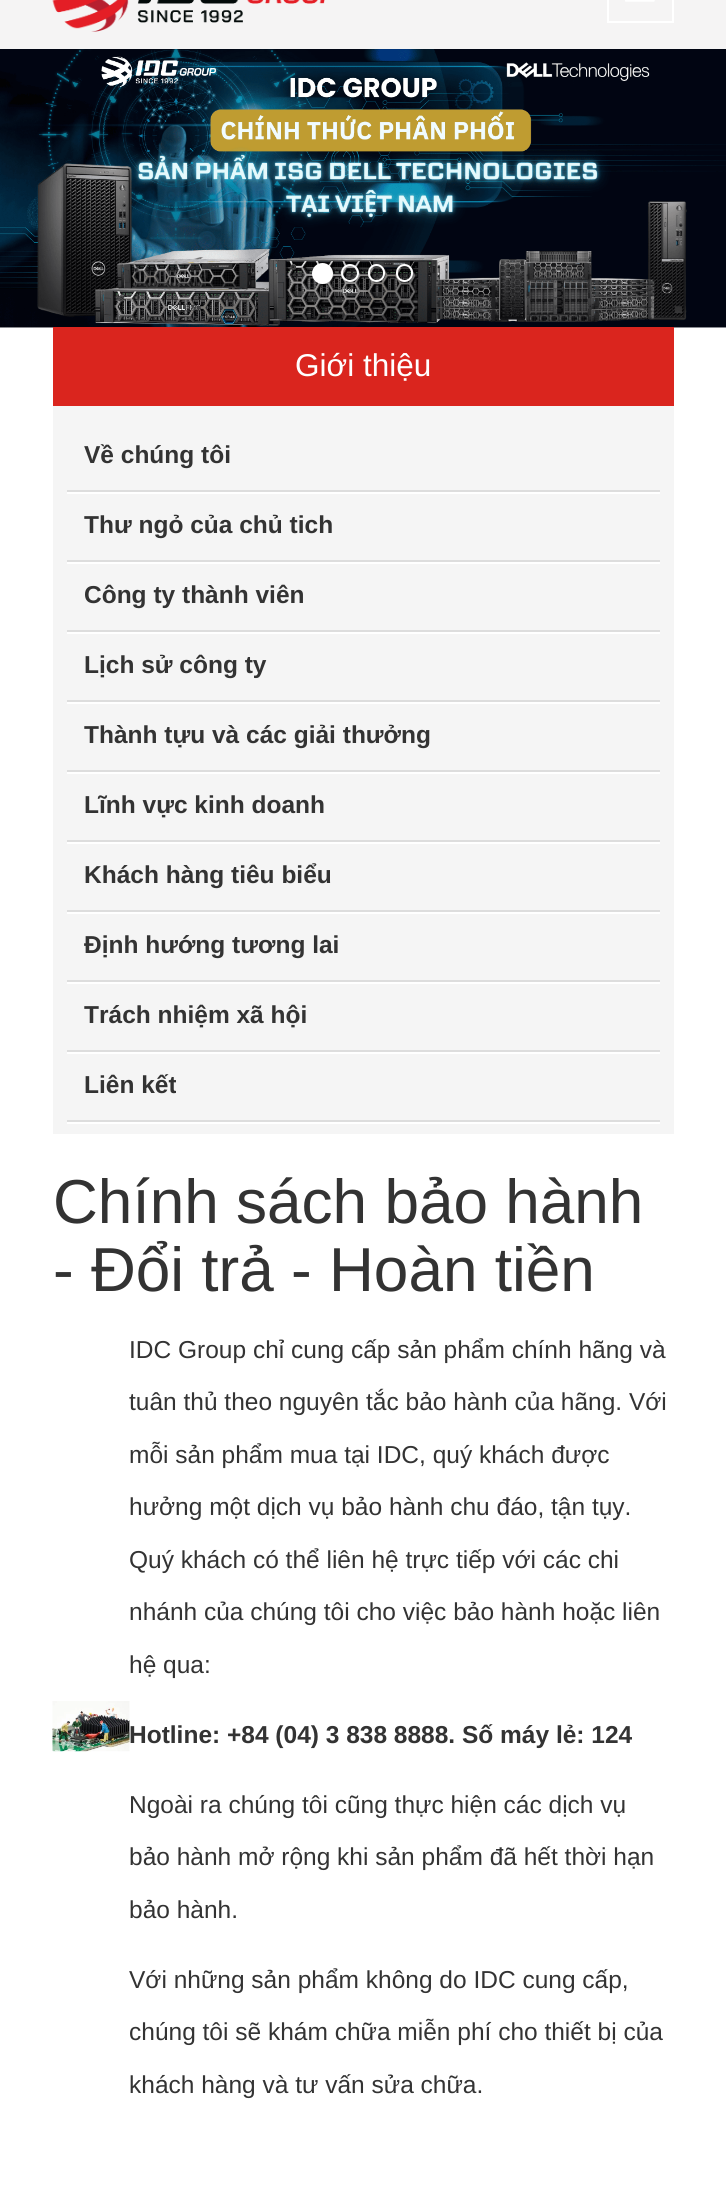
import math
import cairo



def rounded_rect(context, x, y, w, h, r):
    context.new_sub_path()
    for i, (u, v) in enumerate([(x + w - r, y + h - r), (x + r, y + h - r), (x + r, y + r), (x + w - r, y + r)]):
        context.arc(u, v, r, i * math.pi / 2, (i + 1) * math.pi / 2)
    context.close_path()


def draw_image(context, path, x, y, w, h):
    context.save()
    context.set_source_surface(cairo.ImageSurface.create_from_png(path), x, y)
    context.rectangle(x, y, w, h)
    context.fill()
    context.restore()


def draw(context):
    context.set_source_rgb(1, 1, 1)
    context.paint()
    context.set_source_rgb(245 / 255, 244 / 255, 244 / 255)
    context.rectangle(0, 0, 726, 49)
    context.fill()
    context.rectangle(608, -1, 65, 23)
    context.set_source_rgb(1, 1, 1)
    context.stroke()
    draw_image(context, "images/1.png", 625, 0, 30, 2)
    draw_image(context, "images/2.png", 52, 0, 273, 32)
    draw_image(context, "images/3.png", 0, 49, 726, 279)
    context.arc(322.5, 273.5, 9.5, 0, 2 * math.pi)
    context.fill_preserve()
    context.stroke()
    context.arc(350, 273, 8, 0, 2 * math.pi)
    context.stroke()
    rounded_rect(context, 369, 265, 15, 16, 7.5)
    context.stroke()
    rounded_rect(context, 397, 265, 15, 16, 7.5)
    context.stroke()
    context.set_source_rgb(218 / 255, 37 / 255, 30 / 255)
    context.rectangle(53, 327, 621, 79)
    context.fill()
    context.set_source_rgb(245 / 255, 245 / 255, 245 / 255)
    context.rectangle(53, 406, 621, 728)
    context.fill()
    context.set_source_rgb(1, 1, 1)
    context.new_path()
    context.move_to(67, 490)
    context.line_to(67, 494)
    context.line_to(660, 494)
    context.line_to(660, 424)
    context.line_to(660, 490)
    context.close_path()
    context.fill()
    context.set_source_rgb(221 / 255, 221 / 255, 221 / 255)
    context.new_path()
    context.move_to(67, 490)
    context.line_to(67, 492)
    context.line_to(660, 492)
    context.line_to(660, 422)
    context.line_to(660, 490)
    context.close_path()
    context.fill()
    context.set_source_rgb(1, 1, 1)
    context.new_path()
    context.move_to(67, 560)
    context.line_to(67, 564)
    context.line_to(660, 564)
    context.line_to(660, 494)
    context.line_to(660, 560)
    context.close_path()
    context.fill()
    context.set_source_rgb(221 / 255, 221 / 255, 221 / 255)
    context.new_path()
    context.move_to(67, 560)
    context.line_to(67, 562)
    context.line_to(660, 562)
    context.line_to(660, 492)
    context.line_to(660, 560)
    context.close_path()
    context.fill()
    context.set_source_rgb(1, 1, 1)
    context.new_path()
    context.move_to(67, 630)
    context.line_to(67, 634)
    context.line_to(660, 634)
    context.line_to(660, 564)
    context.line_to(660, 630)
    context.close_path()
    context.fill()
    context.set_source_rgb(221 / 255, 221 / 255, 221 / 255)
    context.new_path()
    context.move_to(67, 630)
    context.line_to(67, 632)
    context.line_to(660, 632)
    context.line_to(660, 562)
    context.line_to(660, 630)
    context.close_path()
    context.fill()
    context.set_source_rgb(1, 1, 1)
    context.new_path()
    context.move_to(67, 700)
    context.line_to(67, 704)
    context.line_to(660, 704)
    context.line_to(660, 634)
    context.line_to(660, 700)
    context.close_path()
    context.fill()
    context.set_source_rgb(221 / 255, 221 / 255, 221 / 255)
    context.new_path()
    context.move_to(67, 700)
    context.line_to(67, 702)
    context.line_to(660, 702)
    context.line_to(660, 632)
    context.line_to(660, 700)
    context.close_path()
    context.fill()
    context.set_source_rgb(1, 1, 1)
    context.new_path()
    context.move_to(67, 770)
    context.line_to(67, 774)
    context.line_to(660, 774)
    context.line_to(660, 704)
    context.line_to(660, 770)
    context.close_path()
    context.fill()
    context.set_source_rgb(221 / 255, 221 / 255, 221 / 255)
    context.new_path()
    context.move_to(67, 770)
    context.line_to(67, 772)
    context.line_to(660, 772)
    context.line_to(660, 702)
    context.line_to(660, 770)
    context.close_path()
    context.fill()
    context.set_source_rgb(1, 1, 1)
    context.new_path()
    context.move_to(67, 840)
    context.line_to(67, 844)
    context.line_to(660, 844)
    context.line_to(660, 774)
    context.line_to(660, 840)
    context.close_path()
    context.fill()
    context.set_source_rgb(221 / 255, 221 / 255, 221 / 255)
    context.new_path()
    context.move_to(67, 840)
    context.line_to(67, 842)
    context.line_to(660, 842)
    context.line_to(660, 772)
    context.line_to(660, 840)
    context.close_path()
    context.fill()
    context.set_source_rgb(1, 1, 1)
    context.new_path()
    context.move_to(67, 910)
    context.line_to(67, 914)
    context.line_to(660, 914)
    context.line_to(660, 844)
    context.line_to(660, 910)
    context.close_path()
    context.fill()
    context.set_source_rgb(221 / 255, 221 / 255, 221 / 255)
    context.new_path()
    context.move_to(67, 910)
    context.line_to(67, 912)
    context.line_to(660, 912)
    context.line_to(660, 842)
    context.line_to(660, 910)
    context.close_path()
    context.fill()
    context.set_source_rgb(1, 1, 1)
    context.new_path()
    context.move_to(67, 980)
    context.line_to(67, 984)
    context.line_to(660, 984)
    context.line_to(660, 914)
    context.line_to(660, 980)
    context.close_path()
    context.fill()
    context.set_source_rgb(221 / 255, 221 / 255, 221 / 255)
    context.new_path()
    context.move_to(67, 980)
    context.line_to(67, 982)
    context.line_to(660, 982)
    context.line_to(660, 912)
    context.line_to(660, 980)
    context.close_path()
    context.fill()
    context.set_source_rgb(1, 1, 1)
    context.new_path()
    context.move_to(67, 1050)
    context.line_to(67, 1054)
    context.line_to(660, 1054)
    context.line_to(660, 984)
    context.line_to(660, 1050)
    context.close_path()
    context.fill()
    context.set_source_rgb(221 / 255, 221 / 255, 221 / 255)
    context.new_path()
    context.move_to(67, 1050)
    context.line_to(67, 1052)
    context.line_to(660, 1052)
    context.line_to(660, 982)
    context.line_to(660, 1050)
    context.close_path()
    context.fill()
    context.set_source_rgb(1, 1, 1)
    context.new_path()
    context.move_to(67, 1120)
    context.line_to(67, 1124)
    context.line_to(660, 1124)
    context.line_to(660, 1054)
    context.line_to(660, 1120)
    context.close_path()
    context.fill()
    context.set_source_rgb(221 / 255, 221 / 255, 221 / 255)
    context.new_path()
    context.move_to(67, 1120)
    context.line_to(67, 1122)
    context.line_to(660, 1122)
    context.line_to(660, 1052)
    context.line_to(660, 1120)
    context.close_path()
    context.fill()
    draw_image(context, "images/4.png", 52, 1701, 78, 51)
    context.select_font_face("Liberation Sans")
    context.set_font_size(31.5)
    context.set_source_rgb(1, 1, 1)
    context.move_to(295, 376)
    context.show_text("Giới thiệu")
    context.select_font_face("Liberation Sans", cairo.FontSlant.NORMAL, cairo.FontWeight.BOLD)
    context.set_font_size(24.5)
    context.set_source_rgb(51 / 255, 51 / 255, 51 / 255)
    context.move_to(84, 463)
    context.show_text("Về chúng tôi")
    context.move_to(84, 533)
    context.show_text("Thư ngỏ của chủ tich")
    context.move_to(84, 603)
    context.show_text("Công ty thành viên")
    context.move_to(84, 673)
    context.show_text("Lịch sử công ty")
    context.move_to(84, 743)
    context.show_text("Thành tựu và các giải thưởng")
    context.move_to(84, 813)
    context.show_text("Lĩnh vực kinh doanh")
    context.move_to(84, 883)
    context.show_text("Khách hàng tiêu biểu")
    context.move_to(84, 953)
    context.show_text("Định hướng tương lai")
    context.move_to(84, 1023)
    context.show_text("Trách nhiệm xã hội")
    context.move_to(84, 1093)
    context.show_text("Liên kết")
    context.select_font_face("Liberation Sans")
    context.set_font_size(62.1)
    context.move_to(53, 1223)
    context.show_text("Chính sách bảo hành")
    context.move_to(53, 1291)
    context.show_text("- Đổi trả - Hoàn tiền")
    context.set_font_size(24.5)
    context.move_to(129, 1358)
    context.show_text("IDC Group chỉ cung cấp sản phẩm chính hãng và")
    context.move_to(129, 1410)
    context.show_text("tuân thủ theo nguyên tắc bảo hành của hãng. Với")
    context.move_to(129, 1463)
    context.show_text("mỗi sản phẩm mua tại IDC, quý khách được")
    context.move_to(129, 1515)
    context.show_text("hưởng một dịch vụ bảo hành chu đáo, tận tụy.")
    context.move_to(129, 1568)
    context.show_text("Quý khách có thể liên hệ trực tiếp với các chi")
    context.move_to(129, 1620)
    context.show_text("nhánh của chúng tôi cho việc bảo hành hoặc liên")
    context.move_to(129, 1673)
    context.show_text("hệ qua:")
    context.select_font_face("Liberation Sans", cairo.FontSlant.NORMAL, cairo.FontWeight.BOLD)
    context.move_to(129, 1743)
    context.show_text("Hotline: +84 (04) 3 838 8888. Số máy lẻ: 124")
    context.select_font_face("Liberation Sans")
    context.move_to(129, 1813)
    context.show_text("Ngoài ra chúng tôi cũng thực hiện các dịch vụ")
    context.move_to(129, 1865)
    context.show_text("bảo hành mở rộng khi sản phẩm đã hết thời hạn")
    context.move_to(129, 1918)
    context.show_text("bảo hành.")
    context.move_to(129, 1988)
    context.show_text("Với những sản phẩm không do IDC cung cấp,")
    context.move_to(129, 2040)
    context.show_text("chúng tôi sẽ khám chữa miễn phí cho thiết bị của")
    context.move_to(129, 2093)
    context.show_text("khách hàng và tư vấn sửa chữa.")


surface = cairo.ImageSurface(cairo.Format.RGB24, 726, 2196)
context = cairo.Context(surface)
options = cairo.FontOptions()
options.set_hint_metrics(cairo.HintMetrics.OFF)
options.set_hint_style(cairo.HintStyle.NONE)
context.set_font_options(options)
context.set_miter_limit(4)
draw(context)
surface.write_to_png("out.png")
